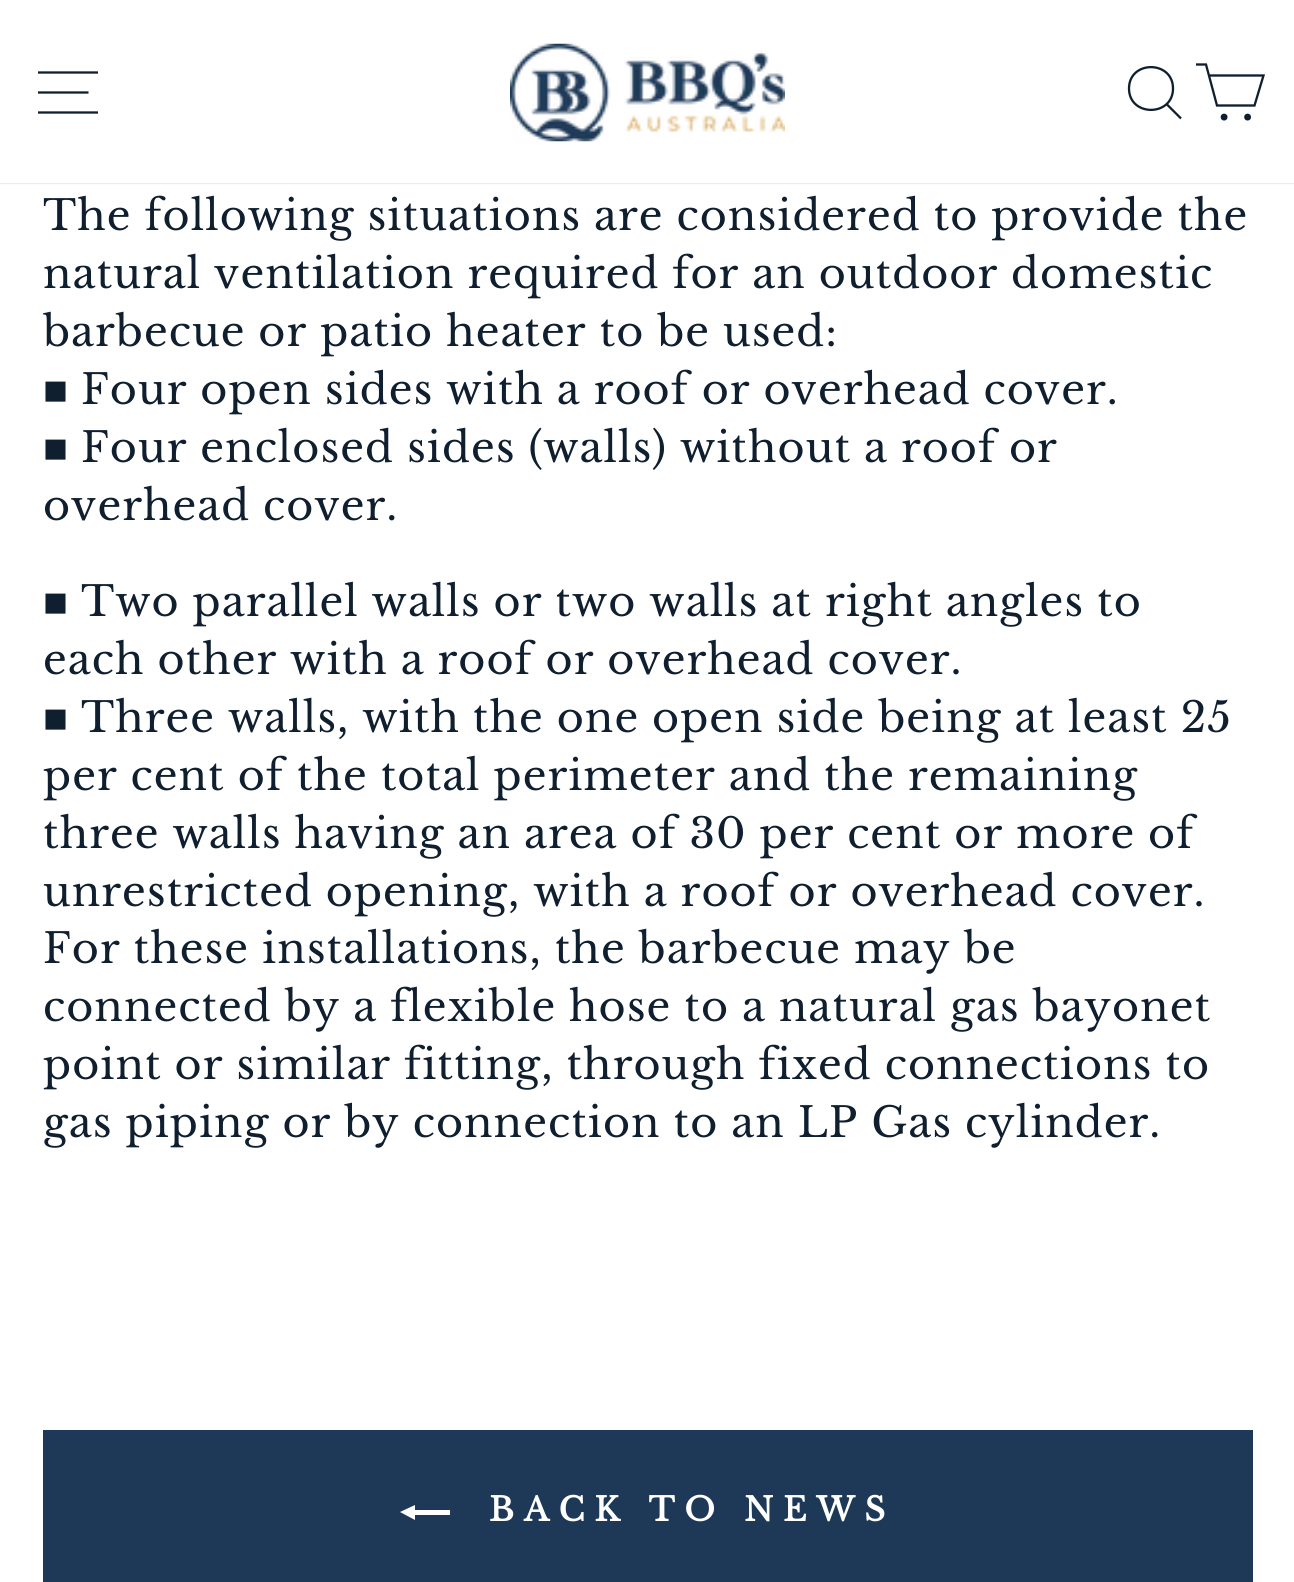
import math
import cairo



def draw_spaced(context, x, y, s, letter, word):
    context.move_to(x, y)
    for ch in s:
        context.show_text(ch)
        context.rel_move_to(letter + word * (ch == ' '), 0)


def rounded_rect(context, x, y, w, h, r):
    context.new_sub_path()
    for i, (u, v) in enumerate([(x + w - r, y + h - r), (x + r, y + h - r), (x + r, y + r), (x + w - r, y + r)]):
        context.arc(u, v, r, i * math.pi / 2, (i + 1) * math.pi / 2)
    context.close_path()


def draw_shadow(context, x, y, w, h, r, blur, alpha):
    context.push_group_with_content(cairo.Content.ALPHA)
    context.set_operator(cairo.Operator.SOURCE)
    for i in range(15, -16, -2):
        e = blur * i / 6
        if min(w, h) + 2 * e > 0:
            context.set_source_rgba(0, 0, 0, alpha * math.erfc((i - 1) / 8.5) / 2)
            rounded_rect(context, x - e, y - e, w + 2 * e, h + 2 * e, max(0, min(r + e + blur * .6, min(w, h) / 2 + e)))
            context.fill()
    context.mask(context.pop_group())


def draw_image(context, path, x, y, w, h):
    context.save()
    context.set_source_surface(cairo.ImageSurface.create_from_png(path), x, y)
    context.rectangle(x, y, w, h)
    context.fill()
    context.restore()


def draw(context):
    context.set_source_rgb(1, 1, 1)
    context.paint()
    context.set_source_rgb(0, 0, 0)
    draw_shadow(context, 0, 0, 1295, 183, 0, 1, 0.2)
    context.set_source_rgb(1, 1, 1)
    context.rectangle(0, 0, 1294, 183)
    context.fill()
    context.new_path()
    context.move_to(38, 72.5)
    context.line_to(98, 72.5)
    context.move_to(38, 92.5)
    context.line_to(88.5, 92.5)
    context.move_to(38, 112.5)
    context.line_to(98, 112.5)
    context.set_source_rgb(15 / 255, 31 / 255, 47 / 255)
    context.set_line_width(2.3)
    context.stroke()
    draw_image(context, "images/1.png", 510, 43, 275, 99)
    context.new_path()
    context.move_to(1173, 88.5)
    context.curve_to(1173, 117, 1129, 117, 1129, 88.5)
    context.curve_to(1129, 60, 1173, 60, 1173, 88.5)
    context.close_path()
    context.move_to(1181, 118.5)
    context.line_to(1166.5, 104)
    context.stroke()
    context.new_path()
    context.move_to(1209, 75.5)
    context.line_to(1263.5, 75.5)
    context.line_to(1254.5, 105.5)
    context.line_to(1217, 105.5)
    context.line_to(1206, 64.5)
    context.line_to(1196, 64.5)
    context.stroke()
    context.arc(1224.1, 117.1, 2.3, 0, 2 * math.pi)
    context.fill_preserve()
    context.stroke()
    context.arc(1247.6, 117.1, 2.3, 0, 2 * math.pi)
    context.fill_preserve()
    context.stroke()
    context.set_source_rgb(30 / 255, 57 / 255, 87 / 255)
    context.rectangle(43, 1430, 1210, 152)
    context.fill()
    context.set_source_rgb(1, 1, 1)
    context.new_path()
    context.move_to(450, 1510)
    context.line_to(450, 1515)
    context.line_to(415, 1515)
    context.line_to(415, 1520)
    context.line_to(400, 1512)
    context.line_to(415, 1505)
    context.line_to(415, 1510)
    context.close_path()
    context.fill()
    context.select_font_face("Libre Baskerville")
    context.set_font_size(41.4)
    context.set_source_rgb(15 / 255, 31 / 255, 47 / 255)
    draw_spaced(context, 43, 230, "The following situations are considered to provide the", 1.03, 0)
    draw_spaced(context, 43, 288, "natural ventilation required for an outdoor domestic", 1.03, 0)
    draw_spaced(context, 43, 346, "barbecue or patio heater to be used:", 1.03, 0)
    context.select_font_face("Liberation Serif")
    draw_spaced(context, 43, 404, "■", 1.03, 0)
    context.select_font_face("Libre Baskerville")
    draw_spaced(context, 81, 404, "Four open sides with a roof or overhead cover.", 1.03, 0)
    context.select_font_face("Liberation Serif")
    draw_spaced(context, 43, 462, "■", 1.03, 0)
    context.select_font_face("Libre Baskerville")
    draw_spaced(context, 81, 462, "Four enclosed sides (walls) without a roof or", 1.03, 0)
    draw_spaced(context, 43, 520, "overhead cover.", 1.03, 0)
    context.select_font_face("Liberation Serif")
    draw_spaced(context, 43, 616, "■", 1.03, 0)
    context.select_font_face("Libre Baskerville")
    draw_spaced(context, 81, 616, "Two parallel walls or two walls at right angles to", 1.03, 0)
    draw_spaced(context, 43, 674, "each other with a roof or overhead cover.", 1.03, 0)
    context.select_font_face("Liberation Serif")
    draw_spaced(context, 43, 732, "■", 1.03, 0)
    context.select_font_face("Libre Baskerville")
    draw_spaced(context, 81, 732, "Three walls, with the one open side being at least 25", 1.03, 0)
    draw_spaced(context, 43, 790, "per cent of the total perimeter and the remaining", 1.03, 0)
    draw_spaced(context, 43, 848, "three walls having an area of 30 per cent or more of", 1.03, 0)
    draw_spaced(context, 43, 906, "unrestricted opening, with a roof or overhead cover.", 1.03, 0)
    draw_spaced(context, 43, 963, "For these installations, the barbecue may be", 1.03, 0)
    draw_spaced(context, 43, 1021, "connected by a flexible hose to a natural gas bayonet", 1.03, 0)
    draw_spaced(context, 43, 1079, "point or similar fitting, through fixed connections to", 1.03, 0)
    draw_spaced(context, 43, 1137, "gas piping or by connection to an LP Gas cylinder.", 1.03, 0)
    context.select_font_face("Libre Baskerville", cairo.FontSlant.NORMAL, cairo.FontWeight.BOLD)
    context.set_font_size(32.5)
    context.set_source_rgb(1, 1, 1)
    draw_spaced(context, 489, 1521, "BACK TO NEWS", 9.75, 0)


surface = cairo.ImageSurface(cairo.Format.RGB24, 1294, 1582)
context = cairo.Context(surface)
options = cairo.FontOptions()
options.set_hint_metrics(cairo.HintMetrics.OFF)
options.set_hint_style(cairo.HintStyle.NONE)
context.set_font_options(options)
context.set_miter_limit(4)
draw(context)
surface.write_to_png("out.png")
